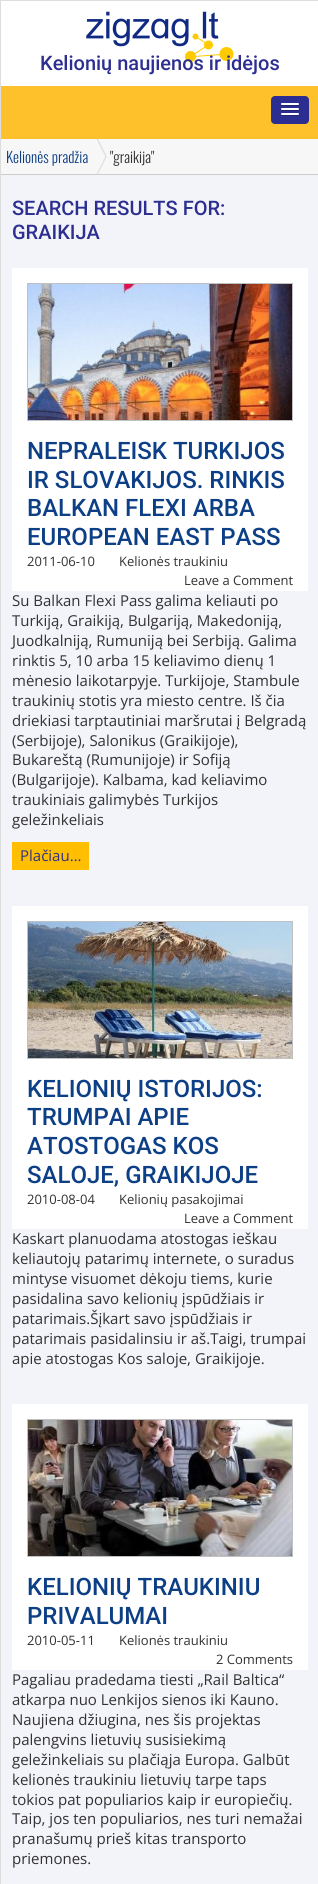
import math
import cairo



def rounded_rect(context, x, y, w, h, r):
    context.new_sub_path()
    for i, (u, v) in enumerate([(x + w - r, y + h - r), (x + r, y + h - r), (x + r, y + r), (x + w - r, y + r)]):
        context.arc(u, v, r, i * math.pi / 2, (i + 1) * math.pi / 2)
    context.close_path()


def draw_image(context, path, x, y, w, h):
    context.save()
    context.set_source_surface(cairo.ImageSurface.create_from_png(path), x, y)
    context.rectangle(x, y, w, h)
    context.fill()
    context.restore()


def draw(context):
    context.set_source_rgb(1, 1, 1)
    context.paint()
    context.rectangle(0.5, 0.5, 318, 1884)
    context.set_source_rgb(221 / 255, 221 / 255, 221 / 255)
    context.set_line_width(1)
    context.stroke()
    draw_image(context, "images/1.png", 86, 11, 148, 51)
    context.set_source_rgb(254 / 255, 193 / 255, 43 / 255)
    context.rectangle(1, 86, 317, 53)
    context.fill()
    context.set_source_rgb(43 / 255, 45 / 255, 144 / 255)
    rounded_rect(context, 271, 96, 38, 28, 4)
    context.fill()
    context.set_source_rgb(32 / 255, 34 / 255, 108 / 255)
    context.new_path()
    context.move_to(281, 104.5)
    context.curve_to(280, 106.5, 284.5, 106, 284.5, 106)
    context.line_to(295.5, 106)
    context.curve_to(295.5, 106, 300, 106.5, 299, 104.5)
    context.curve_to(298, 105.5, 291.5, 105, 290, 105)
    context.curve_to(288.5, 105, 282, 105.5, 281, 104.5)
    context.close_path()
    context.fill()
    context.set_source_rgb(1, 1, 1)
    rounded_rect(context, 281, 103, 18, 2, 1)
    context.fill()
    context.set_source_rgb(32 / 255, 34 / 255, 108 / 255)
    context.new_path()
    context.move_to(281, 109.5)
    context.curve_to(280, 111.5, 284.5, 111, 284.5, 111)
    context.line_to(295.5, 111)
    context.curve_to(295.5, 111, 300, 111.5, 299, 109.5)
    context.curve_to(298, 110.5, 291.5, 110, 290, 110)
    context.curve_to(288.5, 110, 282, 110.5, 281, 109.5)
    context.close_path()
    context.fill()
    context.set_source_rgb(1, 1, 1)
    rounded_rect(context, 281, 108, 18, 2, 1)
    context.fill()
    context.set_source_rgb(32 / 255, 34 / 255, 108 / 255)
    context.new_path()
    context.move_to(281, 114.5)
    context.curve_to(280, 116.5, 284.5, 116, 284.5, 116)
    context.line_to(295.5, 116)
    context.curve_to(295.5, 116, 300, 116.5, 299, 114.5)
    context.curve_to(298, 115.5, 291.5, 115, 290, 115)
    context.curve_to(288.5, 115, 282, 115.5, 281, 114.5)
    context.close_path()
    context.fill()
    context.set_source_rgb(1, 1, 1)
    rounded_rect(context, 281, 113, 18, 2, 1)
    context.fill()
    context.set_source_rgb(247 / 255, 247 / 255, 247 / 255)
    context.rectangle(1, 139, 317, 35)
    context.fill()
    context.set_source_rgb(204 / 255, 204 / 255, 204 / 255)
    context.rectangle(1, 174, 317, 1)
    context.fill()
    draw_image(context, "images/2.png", 96, 139, 11, 35)
    context.set_source_rgb(242 / 255, 244 / 255, 249 / 255)
    context.rectangle(1, 175, 317, 1709)
    context.fill()
    context.set_source_rgb(1, 1, 1)
    context.rectangle(12, 268, 296, 323)
    context.fill()
    context.rectangle(27.5, 283.5, 265, 137)
    context.set_source_rgb(191 / 255, 193 / 255, 195 / 255)
    context.stroke()
    draw_image(context, "images/3.png", 28, 284, 264, 136)
    context.set_source_rgb(1, 191 / 255, 0)
    context.rectangle(12, 842, 77, 28)
    context.fill()
    context.set_source_rgb(1, 1, 1)
    context.rectangle(12, 906, 296, 323)
    context.fill()
    context.rectangle(27.5, 921.5, 265, 137)
    context.set_source_rgb(191 / 255, 193 / 255, 195 / 255)
    context.stroke()
    draw_image(context, "images/4.png", 28, 922, 264, 136)
    context.set_source_rgb(1, 1, 1)
    context.rectangle(12, 1404, 296, 266)
    context.fill()
    context.rectangle(27.5, 1419.5, 265, 137)
    context.set_source_rgb(191 / 255, 193 / 255, 195 / 255)
    context.stroke()
    draw_image(context, "images/5.png", 28, 1420, 264, 136)
    context.select_font_face("Roboto Medium")
    context.set_font_size(20)
    context.set_source_rgb(44 / 255, 46 / 255, 145 / 255)
    context.move_to(40, 70)
    context.show_text("Kelionių naujienos ir idėjos")
    context.select_font_face("Oswald Light")
    context.set_font_size(15)
    context.set_source_rgb(13 / 255, 63 / 255, 134 / 255)
    context.move_to(6, 163)
    context.show_text("Kelionės pradžia")
    context.set_source_rgb(51 / 255, 49 / 255, 50 / 255)
    context.move_to(110, 163)
    context.show_text("\"graikija\"")
    context.select_font_face("Roboto Medium")
    context.set_font_size(20)
    context.set_source_rgb(44 / 255, 46 / 255, 145 / 255)
    context.move_to(12, 215)
    context.show_text("SEARCH RESULTS FOR:")
    context.move_to(12, 239)
    context.show_text("GRAIKIJA")
    context.set_font_size(24)
    context.set_source_rgb(13 / 255, 63 / 255, 134 / 255)
    context.move_to(27, 459)
    context.show_text("NEPRALEISK TURKIJOS")
    context.move_to(27, 488)
    context.show_text("IR SLOVAKIJOS. RINKIS")
    context.move_to(27, 516)
    context.show_text("BALKAN FLEXI ARBA")
    context.move_to(27, 545)
    context.show_text("EUROPEAN EAST PASS")
    context.select_font_face("Open Sans")
    context.set_font_size(13)
    context.set_source_rgb(51 / 255, 49 / 255, 50 / 255)
    context.move_to(27, 566)
    context.show_text("2011-06-10")
    context.move_to(119, 566)
    context.show_text("Kelionės traukiniu")
    context.move_to(184, 585)
    context.show_text("Leave a Comment")
    context.set_font_size(15)
    context.move_to(12, 606)
    context.show_text("Su Balkan Flexi Pass galima keliauti po")
    context.move_to(12, 626)
    context.show_text("Turkiją, Graikiją, Bulgariją, Makedoniją,")
    context.move_to(12, 646)
    context.show_text("Juodkalniją, Rumuniją bei Serbiją. Galima")
    context.move_to(12, 666)
    context.show_text("rinktis 5, 10 arba 15 keliavimo dienų 1")
    context.move_to(12, 686)
    context.show_text("mėnesio laikotarpyje. Turkijoje, Stambule")
    context.move_to(12, 706)
    context.show_text("traukinių stotis yra miesto centre. Iš čia")
    context.move_to(12, 726)
    context.show_text("driekiasi tarptautiniai maršrutai į Belgradą")
    context.move_to(12, 746)
    context.show_text("(Serbijoje), Salonikus (Graikijoje),")
    context.move_to(12, 765)
    context.show_text("Bukareštą (Rumunijoje) ir Sofiją")
    context.move_to(12, 785)
    context.show_text("(Bulgarijoje). Kalbama, kad keliavimo")
    context.move_to(12, 805)
    context.show_text("traukiniais galimybės Turkijos")
    context.move_to(12, 825)
    context.show_text("geležinkeliais")
    context.set_source_rgb(48 / 255, 50 / 255, 136 / 255)
    context.move_to(20, 861)
    context.show_text("Plačiau…")
    context.select_font_face("Roboto Medium")
    context.set_font_size(24)
    context.set_source_rgb(13 / 255, 63 / 255, 134 / 255)
    context.move_to(27, 1097)
    context.show_text("KELIONIŲ ISTORIJOS:")
    context.move_to(27, 1125)
    context.show_text("TRUMPAI APIE")
    context.move_to(27, 1154)
    context.show_text("ATOSTOGAS KOS")
    context.move_to(27, 1183)
    context.show_text("SALOJE, GRAIKIJOJE")
    context.select_font_face("Open Sans")
    context.set_font_size(13)
    context.set_source_rgb(51 / 255, 49 / 255, 50 / 255)
    context.move_to(27, 1204)
    context.show_text("2010-08-04")
    context.move_to(119, 1204)
    context.show_text("Kelionių pasakojimai")
    context.move_to(184, 1223)
    context.show_text("Leave a Comment")
    context.set_font_size(15)
    context.move_to(12, 1244)
    context.show_text("Kaskart planuodama atostogas ieškau")
    context.move_to(12, 1264)
    context.show_text("keliautojų patarimų internete, o suradus")
    context.move_to(12, 1284)
    context.show_text("mintyse visuomet dėkoju tiems, kurie")
    context.move_to(12, 1304)
    context.show_text("pasidalina savo kelionių įspūdžiais ir")
    context.move_to(12, 1324)
    context.show_text("patarimais.Šįkart savo įspūdžiais ir")
    context.move_to(12, 1344)
    context.show_text("patarimais pasidalinsiu ir aš.Taigi, trumpai")
    context.move_to(12, 1364)
    context.show_text("apie atostogas Kos saloje, Graikijoje.")
    context.select_font_face("Roboto Medium")
    context.set_font_size(24)
    context.set_source_rgb(13 / 255, 63 / 255, 134 / 255)
    context.move_to(27, 1595)
    context.show_text("KELIONIŲ TRAUKINIU")
    context.move_to(27, 1624)
    context.show_text("PRIVALUMAI")
    context.select_font_face("Open Sans")
    context.set_font_size(13)
    context.set_source_rgb(51 / 255, 49 / 255, 50 / 255)
    context.move_to(27, 1645)
    context.show_text("2010-05-11")
    context.move_to(119, 1645)
    context.show_text("Kelionės traukiniu")
    context.move_to(216, 1664)
    context.show_text("2 Comments")
    context.set_font_size(15)
    context.move_to(12, 1685)
    context.show_text("Pagaliau pradedama tiesti „Rail Baltica“")
    context.move_to(12, 1705)
    context.show_text("atkarpa nuo Lenkijos sienos iki Kauno.")
    context.move_to(12, 1725)
    context.show_text("Naujiena džiugina, nes šis projektas")
    context.move_to(12, 1745)
    context.show_text("palengvins lietuvių susisiekimą")
    context.move_to(12, 1765)
    context.show_text("geležinkeliais su plačiąja Europa. Galbūt")
    context.move_to(12, 1785)
    context.show_text("kelionės traukiniu lietuvių tarpe taps")
    context.move_to(12, 1805)
    context.show_text("tokios pat populiarios kaip ir europiečių.")
    context.move_to(12, 1824)
    context.show_text("Taip, jos ten populiarios, nes turi nemažai")
    context.move_to(12, 1844)
    context.show_text("pranašumų prieš kitas transporto")
    context.move_to(12, 1864)
    context.show_text("priemones.")


surface = cairo.ImageSurface(cairo.Format.RGB24, 318, 1884)
context = cairo.Context(surface)
options = cairo.FontOptions()
options.set_hint_metrics(cairo.HintMetrics.OFF)
options.set_hint_style(cairo.HintStyle.NONE)
context.set_font_options(options)
context.set_miter_limit(4)
draw(context)
surface.write_to_png("out.png")
